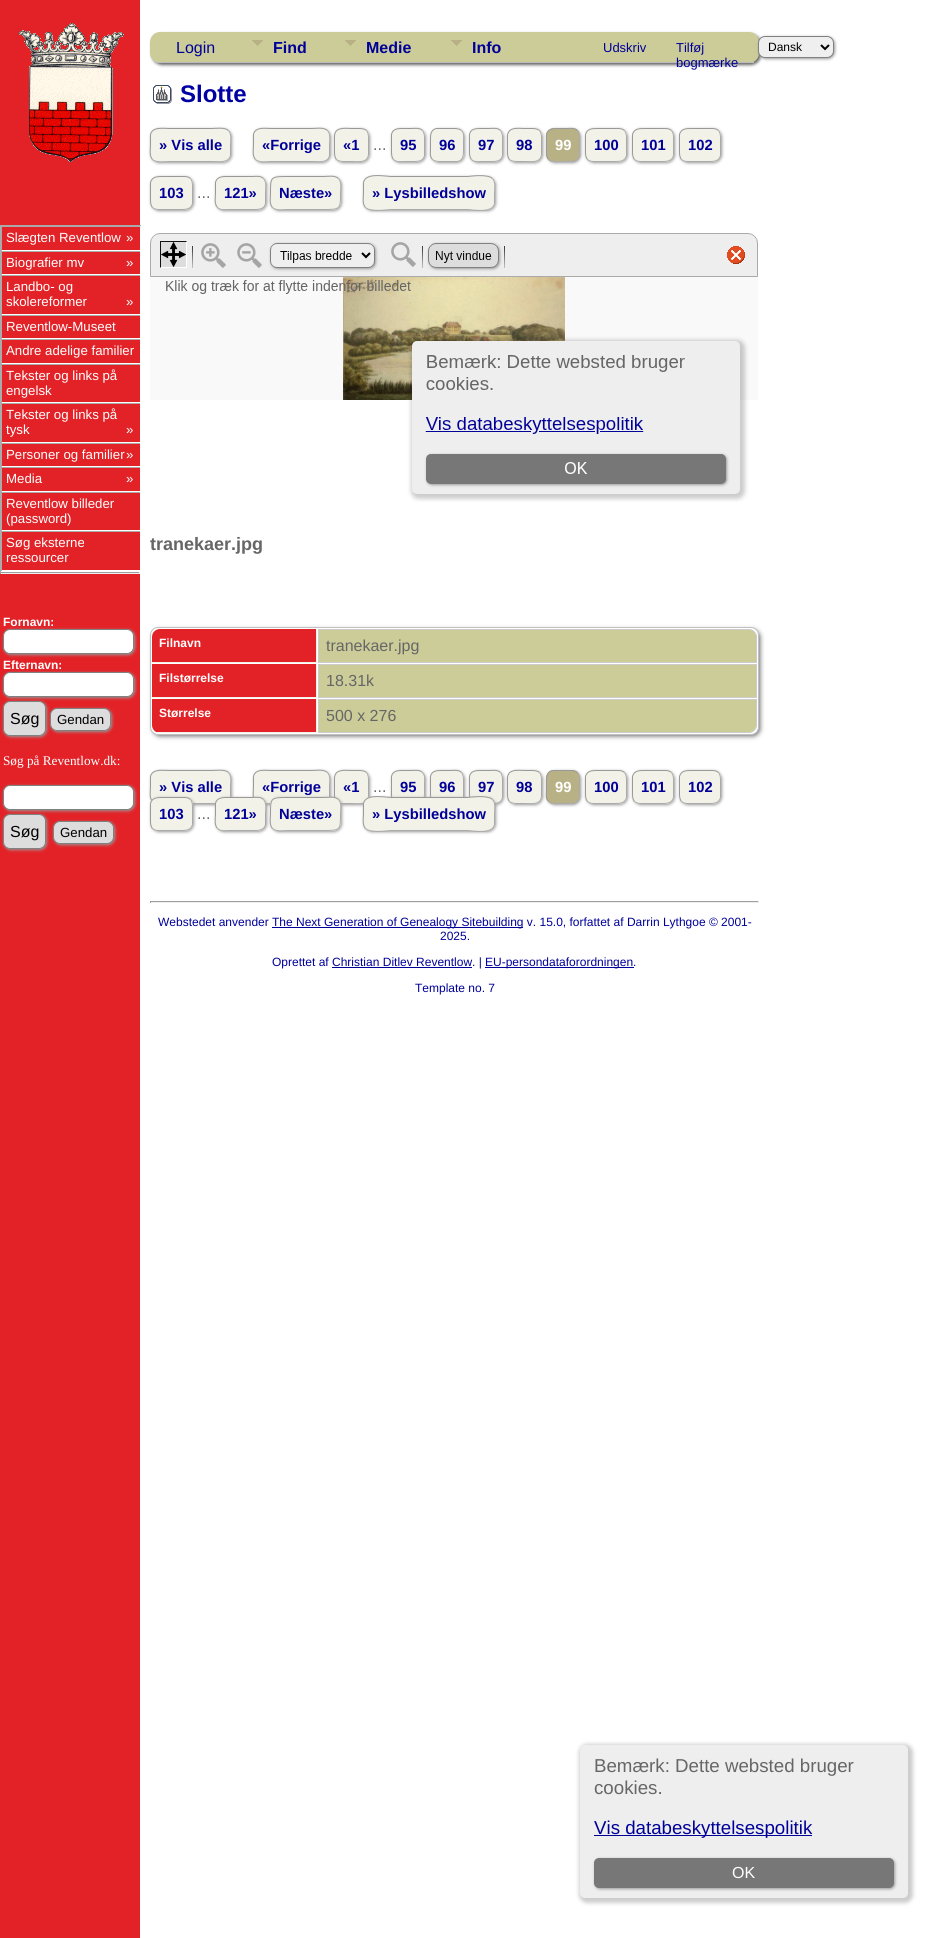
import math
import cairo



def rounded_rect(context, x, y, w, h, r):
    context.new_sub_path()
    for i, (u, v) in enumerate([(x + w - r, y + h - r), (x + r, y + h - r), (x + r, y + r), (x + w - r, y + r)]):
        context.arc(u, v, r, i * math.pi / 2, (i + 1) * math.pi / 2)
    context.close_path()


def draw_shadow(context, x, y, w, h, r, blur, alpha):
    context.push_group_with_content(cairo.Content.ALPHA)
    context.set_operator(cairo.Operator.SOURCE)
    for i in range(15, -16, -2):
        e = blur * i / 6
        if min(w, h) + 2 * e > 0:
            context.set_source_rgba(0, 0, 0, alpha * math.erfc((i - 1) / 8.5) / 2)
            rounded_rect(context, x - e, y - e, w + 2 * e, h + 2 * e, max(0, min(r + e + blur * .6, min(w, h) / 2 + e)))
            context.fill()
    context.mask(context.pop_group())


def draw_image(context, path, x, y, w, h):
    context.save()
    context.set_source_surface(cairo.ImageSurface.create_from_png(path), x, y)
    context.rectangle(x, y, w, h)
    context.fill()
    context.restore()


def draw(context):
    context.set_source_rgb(1, 1, 1)
    context.paint()
    context.set_source_rgb(227 / 255, 34 / 255, 39 / 255)
    context.rectangle(0, 0, 140, 1938)
    context.fill()
    draw_image(context, "images/1.png", 19, 23, 105, 139)
    context.set_source_rgb(170 / 255, 170 / 255, 170 / 255)
    context.rectangle(0, 225, 142, 1)
    context.fill()
    context.set_source_rgb(1, 1, 1)
    context.rectangle(141, 225, 1, 1)
    context.fill()
    context.rectangle(0, 571, 142, 1)
    context.fill()
    context.set_source_rgb(170 / 255, 170 / 255, 170 / 255)
    context.rectangle(0, 225, 1, 347)
    context.fill()
    context.rectangle(1, 226, 140, 1)
    context.fill()
    context.set_source_rgb(1, 1, 1)
    context.rectangle(140, 226, 1, 1)
    context.fill()
    context.rectangle(1, 250, 140, 1)
    context.fill()
    context.set_source_rgb(170 / 255, 170 / 255, 170 / 255)
    context.rectangle(1, 226, 1, 25)
    context.fill()
    context.rectangle(1, 251, 140, 1)
    context.fill()
    context.set_source_rgb(1, 1, 1)
    context.rectangle(140, 251, 1, 1)
    context.fill()
    context.rectangle(1, 274, 140, 1)
    context.fill()
    context.set_source_rgb(170 / 255, 170 / 255, 170 / 255)
    context.rectangle(1, 251, 1, 24)
    context.fill()
    context.rectangle(1, 275, 140, 1)
    context.fill()
    context.set_source_rgb(1, 1, 1)
    context.rectangle(140, 275, 1, 1)
    context.fill()
    context.rectangle(1, 314, 140, 1)
    context.fill()
    context.set_source_rgb(170 / 255, 170 / 255, 170 / 255)
    context.rectangle(1, 275, 1, 40)
    context.fill()
    context.rectangle(1, 315, 140, 1)
    context.fill()
    context.set_source_rgb(1, 1, 1)
    context.rectangle(140, 315, 1, 1)
    context.fill()
    context.rectangle(1, 338, 140, 1)
    context.fill()
    context.set_source_rgb(170 / 255, 170 / 255, 170 / 255)
    context.rectangle(1, 315, 1, 24)
    context.fill()
    context.rectangle(1, 339, 140, 1)
    context.fill()
    context.set_source_rgb(1, 1, 1)
    context.rectangle(140, 339, 1, 1)
    context.fill()
    context.rectangle(1, 363, 140, 1)
    context.fill()
    context.set_source_rgb(170 / 255, 170 / 255, 170 / 255)
    context.rectangle(1, 339, 1, 25)
    context.fill()
    context.rectangle(1, 364, 140, 1)
    context.fill()
    context.set_source_rgb(1, 1, 1)
    context.rectangle(140, 364, 1, 1)
    context.fill()
    context.rectangle(1, 402, 140, 1)
    context.fill()
    context.set_source_rgb(170 / 255, 170 / 255, 170 / 255)
    context.rectangle(1, 364, 1, 39)
    context.fill()
    context.rectangle(1, 403, 140, 1)
    context.fill()
    context.set_source_rgb(1, 1, 1)
    context.rectangle(140, 403, 1, 1)
    context.fill()
    context.rectangle(1, 442, 140, 1)
    context.fill()
    context.set_source_rgb(170 / 255, 170 / 255, 170 / 255)
    context.rectangle(1, 403, 1, 40)
    context.fill()
    context.rectangle(1, 443, 140, 1)
    context.fill()
    context.set_source_rgb(1, 1, 1)
    context.rectangle(140, 443, 1, 1)
    context.fill()
    context.rectangle(1, 466, 140, 1)
    context.fill()
    context.set_source_rgb(170 / 255, 170 / 255, 170 / 255)
    context.rectangle(1, 443, 1, 24)
    context.fill()
    context.rectangle(1, 467, 140, 1)
    context.fill()
    context.set_source_rgb(1, 1, 1)
    context.rectangle(140, 467, 1, 1)
    context.fill()
    context.rectangle(1, 491, 140, 1)
    context.fill()
    context.set_source_rgb(170 / 255, 170 / 255, 170 / 255)
    context.rectangle(1, 467, 1, 25)
    context.fill()
    context.rectangle(1, 492, 140, 1)
    context.fill()
    context.set_source_rgb(1, 1, 1)
    context.rectangle(140, 492, 1, 1)
    context.fill()
    context.rectangle(1, 530, 140, 1)
    context.fill()
    context.set_source_rgb(170 / 255, 170 / 255, 170 / 255)
    context.rectangle(1, 492, 1, 39)
    context.fill()
    context.rectangle(1, 531, 140, 1)
    context.fill()
    context.set_source_rgb(1, 1, 1)
    context.rectangle(140, 531, 1, 1)
    context.fill()
    context.rectangle(1, 570, 140, 1)
    context.fill()
    context.set_source_rgb(170 / 255, 170 / 255, 170 / 255)
    context.rectangle(1, 531, 1, 40)
    context.fill()
    context.set_source_rgb(159 / 255, 159 / 255, 159 / 255)
    context.rectangle(0, 572, 140, 1)
    context.fill()
    context.set_source_rgb(238 / 255, 238 / 255, 238 / 255)
    context.rectangle(139, 572, 1, 2)
    context.fill()
    context.rectangle(0, 573, 140, 1)
    context.fill()
    context.set_source_rgb(159 / 255, 159 / 255, 159 / 255)
    context.rectangle(0, 572, 1, 2)
    context.fill()
    context.set_source_rgb(153 / 255, 153 / 255, 153 / 255)
    draw_shadow(context, 4, 630, 131, 25, 7, 1.5, 1)
    context.set_source_rgb(1, 1, 1)
    rounded_rect(context, 3.5, 629.5, 130, 24, 6.5)
    context.fill_preserve()
    context.set_source_rgb(128 / 255, 128 / 255, 128 / 255)
    context.set_line_width(1)
    context.stroke()
    context.set_source_rgb(153 / 255, 153 / 255, 153 / 255)
    draw_shadow(context, 4, 673, 131, 25, 7, 1.5, 1)
    context.set_source_rgb(1, 1, 1)
    rounded_rect(context, 3.5, 672.5, 130, 24, 6.5)
    context.fill_preserve()
    context.set_source_rgb(128 / 255, 128 / 255, 128 / 255)
    context.stroke()
    context.set_source_rgb(153 / 255, 153 / 255, 153 / 255)
    draw_shadow(context, 4, 702, 43, 35, 7, 1.5, 1)
    context.set_source_rgb(221 / 255, 221 / 255, 221 / 255)
    rounded_rect(context, 3.5, 701.5, 42, 34, 6.5)
    context.fill_preserve()
    context.set_source_rgb(128 / 255, 128 / 255, 128 / 255)
    context.stroke()
    context.set_source_rgb(153 / 255, 153 / 255, 153 / 255)
    draw_shadow(context, 51, 709, 61, 23, 7, 1.5, 1)
    context.set_source_rgb(221 / 255, 221 / 255, 221 / 255)
    rounded_rect(context, 50.5, 708.5, 60, 22, 6.5)
    context.fill_preserve()
    context.set_source_rgb(128 / 255, 128 / 255, 128 / 255)
    context.stroke()
    context.set_source_rgb(153 / 255, 153 / 255, 153 / 255)
    draw_shadow(context, 4, 786, 131, 25, 7, 1.5, 1)
    context.set_source_rgb(1, 1, 1)
    rounded_rect(context, 3.5, 785.5, 130, 24, 6.5)
    context.fill_preserve()
    context.set_source_rgb(128 / 255, 128 / 255, 128 / 255)
    context.stroke()
    context.set_source_rgb(153 / 255, 153 / 255, 153 / 255)
    draw_shadow(context, 4, 815, 43, 35, 7, 1.5, 1)
    context.set_source_rgb(221 / 255, 221 / 255, 221 / 255)
    rounded_rect(context, 3.5, 814.5, 42, 34, 6.5)
    context.fill_preserve()
    context.set_source_rgb(128 / 255, 128 / 255, 128 / 255)
    context.stroke()
    context.set_source_rgb(153 / 255, 153 / 255, 153 / 255)
    draw_shadow(context, 54, 822, 61, 23, 7, 1.5, 1)
    context.set_source_rgb(221 / 255, 221 / 255, 221 / 255)
    rounded_rect(context, 53.5, 821.5, 60, 22, 6.5)
    context.fill_preserve()
    context.set_source_rgb(128 / 255, 128 / 255, 128 / 255)
    context.stroke()
    context.set_source_rgb(102 / 255, 102 / 255, 102 / 255)
    draw_shadow(context, 152, 34, 609, 31, 10, 1.5, 1)
    context.set_source_rgb(204 / 255, 204 / 255, 153 / 255)
    rounded_rect(context, 150, 32, 609, 31, 10)
    context.fill()
    context.set_source_rgb(187 / 255, 187 / 255, 187 / 255)
    context.rectangle(155, 62, 599, 1)
    context.fill()
    draw_image(context, "images/2.png", 252, 40, 11, 6)
    draw_image(context, "images/2.png", 345, 40, 11, 6)
    draw_image(context, "images/2.png", 451, 40, 11, 6)
    context.set_source_rgb(153 / 255, 153 / 255, 153 / 255)
    draw_shadow(context, 759, 37, 76, 22, 7, 1.5, 1)
    context.set_source_rgb(239 / 255, 239 / 255, 239 / 255)
    rounded_rect(context, 758.5, 36.5, 75, 21, 6.5)
    context.fill_preserve()
    context.set_source_rgb(128 / 255, 128 / 255, 128 / 255)
    context.stroke()
    context.new_path()
    context.move_to(821, 45)
    context.line_to(825, 49)
    context.line_to(829, 45)
    context.set_source_rgb(0, 0, 0)
    context.set_line_width(2)
    context.stroke()
    draw_image(context, "images/3.png", 153, 85, 19, 19)
    context.set_source_rgb(153 / 255, 153 / 255, 153 / 255)
    draw_shadow(context, 151, 129, 81, 34, 8, 1.5, 1)
    context.set_source_rgb(242 / 255, 242 / 255, 233 / 255)
    rounded_rect(context, 150, 128, 81, 34, 8)
    context.fill()
    context.new_path()
    context.move_to(228.5, 130.5)
    context.curve_to(232, 134.5, 230.5, 140.5, 230.5, 145)
    context.line_to(230.5, 155.5)
    context.curve_to(228.5, 163.5, 218, 161.5, 212, 161.5)
    context.line_to(169, 161.5)
    context.curve_to(165, 161.5, 156.5, 163, 152.5, 159.5)
    context.set_source_rgb(170 / 255, 170 / 255, 170 / 255)
    context.set_line_width(1)
    context.stroke()
    context.new_path()
    context.move_to(152.5, 159.5)
    context.curve_to(149, 155.5, 150.5, 149.5, 150.5, 145)
    context.line_to(150.5, 134.5)
    context.curve_to(152.5, 126.5, 163, 128.5, 169, 128.5)
    context.line_to(212, 128.5)
    context.curve_to(216, 128.5, 224.5, 127, 228.5, 130.5)
    context.set_source_rgb(153 / 255, 153 / 255, 153 / 255)
    context.stroke()
    context.set_source_rgb(153 / 255, 153 / 255, 153 / 255)
    draw_shadow(context, 254, 129, 77, 34, 8, 1.5, 1)
    context.set_source_rgb(242 / 255, 242 / 255, 233 / 255)
    rounded_rect(context, 253, 128, 77, 34, 8)
    context.fill()
    context.new_path()
    context.move_to(327.5, 130.5)
    context.curve_to(331, 134.5, 329.5, 140.5, 329.5, 145)
    context.line_to(329.5, 155.5)
    context.curve_to(328, 163.5, 317.5, 161.5, 312, 161.5)
    context.line_to(271, 161.5)
    context.curve_to(267, 161.5, 259.5, 163, 255.5, 159.5)
    context.set_source_rgb(170 / 255, 170 / 255, 170 / 255)
    context.stroke()
    context.new_path()
    context.move_to(255.5, 159.5)
    context.curve_to(252, 155.5, 253.5, 149.5, 253.5, 145)
    context.line_to(253.5, 134.5)
    context.curve_to(255, 126.5, 265.5, 128.5, 271, 128.5)
    context.line_to(312, 128.5)
    context.curve_to(316, 128.5, 323.5, 127, 327.5, 130.5)
    context.set_source_rgb(153 / 255, 153 / 255, 153 / 255)
    context.stroke()
    context.set_source_rgb(153 / 255, 153 / 255, 153 / 255)
    draw_shadow(context, 335, 129, 35, 34, 8, 1.5, 1)
    context.set_source_rgb(242 / 255, 242 / 255, 233 / 255)
    rounded_rect(context, 334, 128, 35, 34, 8)
    context.fill()
    context.new_path()
    context.move_to(366.5, 130.5)
    context.curve_to(368.5, 133, 368.5, 136, 368.5, 139)
    context.line_to(368.5, 154.5)
    context.curve_to(367.5, 163.5, 357.5, 161.5, 351.5, 161.5)
    context.line_to(345, 161.5)
    context.curve_to(342, 161.5, 339, 161.5, 336.5, 159.5)
    context.set_source_rgb(170 / 255, 170 / 255, 170 / 255)
    context.stroke()
    context.new_path()
    context.move_to(336.5, 159.5)
    context.curve_to(334.5, 157, 334.5, 154, 334.5, 151)
    context.line_to(334.5, 135.5)
    context.curve_to(335.5, 126.5, 345.5, 128.5, 351.5, 128.5)
    context.line_to(358, 128.5)
    context.curve_to(361, 128.5, 364, 128.5, 366.5, 130.5)
    context.set_source_rgb(153 / 255, 153 / 255, 153 / 255)
    context.stroke()
    context.set_source_rgb(153 / 255, 153 / 255, 153 / 255)
    draw_shadow(context, 392, 129, 34, 34, 8, 1.5, 1)
    context.set_source_rgb(242 / 255, 242 / 255, 233 / 255)
    rounded_rect(context, 391, 128, 34, 34, 8)
    context.fill()
    context.new_path()
    context.move_to(422.5, 130.5)
    context.curve_to(424.5, 133, 424.5, 136, 424.5, 139)
    context.line_to(424.5, 155.5)
    context.curve_to(423.5, 161, 418.5, 161.5, 414, 161.5)
    context.line_to(405, 161.5)
    context.curve_to(401, 161.5, 396.5, 162.5, 393.5, 159.5)
    context.set_source_rgb(170 / 255, 170 / 255, 170 / 255)
    context.stroke()
    context.new_path()
    context.move_to(393.5, 159.5)
    context.curve_to(391.5, 157, 391.5, 154, 391.5, 151)
    context.line_to(391.5, 134.5)
    context.curve_to(392.5, 129, 397.5, 128.5, 402, 128.5)
    context.line_to(411, 128.5)
    context.curve_to(415, 128.5, 419.5, 127.5, 422.5, 130.5)
    context.set_source_rgb(153 / 255, 153 / 255, 153 / 255)
    context.stroke()
    context.set_source_rgb(153 / 255, 153 / 255, 153 / 255)
    draw_shadow(context, 431, 129, 34, 34, 8, 1.5, 1)
    context.set_source_rgb(242 / 255, 242 / 255, 233 / 255)
    rounded_rect(context, 430, 128, 34, 34, 8)
    context.fill()
    context.new_path()
    context.move_to(461.5, 130.5)
    context.curve_to(464.5, 133.5, 463.5, 138, 463.5, 142)
    context.line_to(463.5, 151)
    context.curve_to(463.5, 155.5, 463, 160.5, 457.5, 161.5)
    context.line_to(441, 161.5)
    context.curve_to(438, 161.5, 435, 161.5, 432.5, 159.5)
    context.set_source_rgb(170 / 255, 170 / 255, 170 / 255)
    context.stroke()
    context.new_path()
    context.move_to(432.5, 159.5)
    context.curve_to(429.5, 156.5, 430.5, 152, 430.5, 148)
    context.line_to(430.5, 139)
    context.curve_to(430.5, 134.5, 431, 129.5, 436.5, 128.5)
    context.line_to(453, 128.5)
    context.curve_to(456, 128.5, 459, 128.5, 461.5, 130.5)
    context.set_source_rgb(153 / 255, 153 / 255, 153 / 255)
    context.stroke()
    context.set_source_rgb(153 / 255, 153 / 255, 153 / 255)
    draw_shadow(context, 470, 129, 34, 34, 8, 1.5, 1)
    context.set_source_rgb(242 / 255, 242 / 255, 233 / 255)
    rounded_rect(context, 469, 128, 34, 34, 8)
    context.fill()
    context.new_path()
    context.move_to(500.5, 130.5)
    context.curve_to(502.5, 133, 502.5, 136, 502.5, 139)
    context.line_to(502.5, 155.5)
    context.curve_to(501.5, 161, 496.5, 161.5, 492, 161.5)
    context.line_to(483, 161.5)
    context.curve_to(479, 161.5, 474.5, 162.5, 471.5, 159.5)
    context.set_source_rgb(170 / 255, 170 / 255, 170 / 255)
    context.stroke()
    context.new_path()
    context.move_to(471.5, 159.5)
    context.curve_to(469.5, 157, 469.5, 154, 469.5, 151)
    context.line_to(469.5, 134.5)
    context.curve_to(470.5, 129, 475.5, 128.5, 480, 128.5)
    context.line_to(489, 128.5)
    context.curve_to(493, 128.5, 497.5, 127.5, 500.5, 130.5)
    context.set_source_rgb(153 / 255, 153 / 255, 153 / 255)
    context.stroke()
    context.set_source_rgb(153 / 255, 153 / 255, 153 / 255)
    draw_shadow(context, 508, 129, 35, 34, 8, 1.5, 1)
    context.set_source_rgb(242 / 255, 242 / 255, 233 / 255)
    rounded_rect(context, 507, 128, 35, 34, 8)
    context.fill()
    context.new_path()
    context.move_to(539.5, 130.5)
    context.curve_to(541.5, 133, 541.5, 136, 541.5, 139)
    context.line_to(541.5, 154.5)
    context.curve_to(540.5, 163.5, 530.5, 161.5, 524.5, 161.5)
    context.line_to(518, 161.5)
    context.curve_to(515, 161.5, 512, 161.5, 509.5, 159.5)
    context.set_source_rgb(170 / 255, 170 / 255, 170 / 255)
    context.stroke()
    context.new_path()
    context.move_to(509.5, 159.5)
    context.curve_to(507.5, 157, 507.5, 154, 507.5, 151)
    context.line_to(507.5, 135.5)
    context.curve_to(508.5, 126.5, 518.5, 128.5, 524.5, 128.5)
    context.line_to(531, 128.5)
    context.curve_to(534, 128.5, 537, 128.5, 539.5, 130.5)
    context.set_source_rgb(153 / 255, 153 / 255, 153 / 255)
    context.stroke()
    context.set_source_rgb(153 / 255, 153 / 255, 153 / 255)
    draw_shadow(context, 547, 129, 34, 34, 8, 1.5, 1)
    context.set_source_rgb(185 / 255, 177 / 255, 134 / 255)
    rounded_rect(context, 546, 128, 34, 34, 8)
    context.fill()
    context.new_path()
    context.move_to(577.5, 130.5)
    context.curve_to(579.5, 133, 579.5, 136, 579.5, 139)
    context.line_to(579.5, 155.5)
    context.curve_to(578.5, 161, 573.5, 161.5, 569, 161.5)
    context.line_to(560, 161.5)
    context.curve_to(556, 161.5, 551.5, 162.5, 548.5, 159.5)
    context.set_source_rgb(170 / 255, 170 / 255, 170 / 255)
    context.stroke()
    context.new_path()
    context.move_to(548.5, 159.5)
    context.curve_to(546.5, 157, 546.5, 154, 546.5, 151)
    context.line_to(546.5, 134.5)
    context.curve_to(547.5, 129, 552.5, 128.5, 557, 128.5)
    context.line_to(566, 128.5)
    context.curve_to(570, 128.5, 574.5, 127.5, 577.5, 130.5)
    context.set_source_rgb(153 / 255, 153 / 255, 153 / 255)
    context.stroke()
    context.set_source_rgb(153 / 255, 153 / 255, 153 / 255)
    draw_shadow(context, 586, 129, 42, 34, 8, 1.5, 1)
    context.set_source_rgb(242 / 255, 242 / 255, 233 / 255)
    rounded_rect(context, 585, 128, 42, 34, 8)
    context.fill()
    context.new_path()
    context.move_to(624.5, 130.5)
    context.curve_to(626.5, 133, 626.5, 136, 626.5, 139)
    context.line_to(626.5, 155.5)
    context.curve_to(625, 161.5, 619.5, 161.5, 614.5, 161.5)
    context.line_to(597.5, 161.5)
    context.curve_to(594, 161.5, 590.5, 162, 587.5, 159.5)
    context.set_source_rgb(170 / 255, 170 / 255, 170 / 255)
    context.stroke()
    context.new_path()
    context.move_to(587.5, 159.5)
    context.curve_to(585.5, 157, 585.5, 154, 585.5, 151)
    context.line_to(585.5, 134.5)
    context.curve_to(587, 128.5, 592.5, 128.5, 597.5, 128.5)
    context.line_to(614.5, 128.5)
    context.curve_to(618, 128.5, 621.5, 128, 624.5, 130.5)
    context.set_source_rgb(153 / 255, 153 / 255, 153 / 255)
    context.stroke()
    context.set_source_rgb(153 / 255, 153 / 255, 153 / 255)
    draw_shadow(context, 633, 129, 42, 34, 8, 1.5, 1)
    context.set_source_rgb(242 / 255, 242 / 255, 233 / 255)
    rounded_rect(context, 632, 128, 42, 34, 8)
    context.fill()
    context.new_path()
    context.move_to(671.5, 130.5)
    context.curve_to(673.5, 133, 673.5, 136, 673.5, 139)
    context.line_to(673.5, 155.5)
    context.curve_to(672, 161.5, 666.5, 161.5, 661.5, 161.5)
    context.line_to(644.5, 161.5)
    context.curve_to(641, 161.5, 637.5, 162, 634.5, 159.5)
    context.set_source_rgb(170 / 255, 170 / 255, 170 / 255)
    context.stroke()
    context.new_path()
    context.move_to(634.5, 159.5)
    context.curve_to(632.5, 157, 632.5, 154, 632.5, 151)
    context.line_to(632.5, 134.5)
    context.curve_to(634, 128.5, 639.5, 128.5, 644.5, 128.5)
    context.line_to(661.5, 128.5)
    context.curve_to(665, 128.5, 668.5, 128, 671.5, 130.5)
    context.set_source_rgb(153 / 255, 153 / 255, 153 / 255)
    context.stroke()
    context.set_source_rgb(153 / 255, 153 / 255, 153 / 255)
    draw_shadow(context, 680, 129, 42, 34, 8, 1.5, 1)
    context.set_source_rgb(242 / 255, 242 / 255, 233 / 255)
    rounded_rect(context, 679, 128, 42, 34, 8)
    context.fill()
    context.new_path()
    context.move_to(718.5, 130.5)
    context.curve_to(720.5, 133, 720.5, 136, 720.5, 139)
    context.line_to(720.5, 155.5)
    context.curve_to(719, 161.5, 713.5, 161.5, 708.5, 161.5)
    context.line_to(691.5, 161.5)
    context.curve_to(688, 161.5, 684.5, 162, 681.5, 159.5)
    context.set_source_rgb(170 / 255, 170 / 255, 170 / 255)
    context.stroke()
    context.new_path()
    context.move_to(681.5, 159.5)
    context.curve_to(679.5, 157, 679.5, 154, 679.5, 151)
    context.line_to(679.5, 134.5)
    context.curve_to(681, 128.5, 686.5, 128.5, 691.5, 128.5)
    context.line_to(708.5, 128.5)
    context.curve_to(712, 128.5, 715.5, 128, 718.5, 130.5)
    context.set_source_rgb(153 / 255, 153 / 255, 153 / 255)
    context.stroke()
    context.set_source_rgb(153 / 255, 153 / 255, 153 / 255)
    draw_shadow(context, 151, 177, 43, 34, 8, 1.5, 1)
    context.set_source_rgb(242 / 255, 242 / 255, 233 / 255)
    rounded_rect(context, 150, 176, 43, 34, 8)
    context.fill()
    context.new_path()
    context.move_to(190.5, 178.5)
    context.curve_to(192.5, 181, 192.5, 184, 192.5, 187)
    context.line_to(192.5, 203.5)
    context.curve_to(191, 209.5, 185.5, 209.5, 180.5, 209.5)
    context.line_to(162.5, 209.5)
    context.curve_to(159, 209.5, 155.5, 210, 152.5, 207.5)
    context.set_source_rgb(170 / 255, 170 / 255, 170 / 255)
    context.stroke()
    context.new_path()
    context.move_to(152.5, 207.5)
    context.curve_to(150.5, 205, 150.5, 202, 150.5, 199)
    context.line_to(150.5, 182.5)
    context.curve_to(152, 176.5, 157.5, 176.5, 162.5, 176.5)
    context.line_to(180.5, 176.5)
    context.curve_to(184, 176.5, 187.5, 176, 190.5, 178.5)
    context.set_source_rgb(153 / 255, 153 / 255, 153 / 255)
    context.stroke()
    context.set_source_rgb(153 / 255, 153 / 255, 153 / 255)
    draw_shadow(context, 216, 177, 51, 34, 8, 1.5, 1)
    context.set_source_rgb(242 / 255, 242 / 255, 233 / 255)
    rounded_rect(context, 215, 176, 51, 34, 8)
    context.fill()
    context.new_path()
    context.move_to(263.5, 178.5)
    context.curve_to(267, 182.5, 265.5, 188.5, 265.5, 193)
    context.line_to(265.5, 203.5)
    context.curve_to(264, 210, 257.5, 209.5, 252, 209.5)
    context.line_to(229, 209.5)
    context.curve_to(225, 209.5, 220.5, 210.5, 217.5, 207.5)
    context.set_source_rgb(170 / 255, 170 / 255, 170 / 255)
    context.stroke()
    context.new_path()
    context.move_to(217.5, 207.5)
    context.curve_to(214, 203.5, 215.5, 197.5, 215.5, 193)
    context.line_to(215.5, 182.5)
    context.curve_to(217, 176, 223.5, 176.5, 229, 176.5)
    context.line_to(252, 176.5)
    context.curve_to(256, 176.5, 260.5, 175.5, 263.5, 178.5)
    context.set_source_rgb(153 / 255, 153 / 255, 153 / 255)
    context.stroke()
    context.set_source_rgb(153 / 255, 153 / 255, 153 / 255)
    draw_shadow(context, 271, 177, 71, 34, 8, 1.5, 1)
    context.set_source_rgb(242 / 255, 242 / 255, 233 / 255)
    rounded_rect(context, 270, 176, 71, 34, 8)
    context.fill()
    context.new_path()
    context.move_to(338.5, 178.5)
    context.curve_to(342, 182.5, 340.5, 188.5, 340.5, 193)
    context.curve_to(340.5, 209, 340.5, 209.5, 324, 209.5)
    context.line_to(287, 209.5)
    context.curve_to(283, 209.5, 276.5, 211, 272.5, 207.5)
    context.set_source_rgb(170 / 255, 170 / 255, 170 / 255)
    context.stroke()
    context.new_path()
    context.move_to(272.5, 207.5)
    context.curve_to(269, 203.5, 270.5, 197.5, 270.5, 193)
    context.curve_to(270.5, 177, 270.5, 176.5, 287, 176.5)
    context.line_to(324, 176.5)
    context.curve_to(328, 176.5, 334.5, 175, 338.5, 178.5)
    context.set_source_rgb(153 / 255, 153 / 255, 153 / 255)
    context.stroke()
    context.set_source_rgb(153 / 255, 153 / 255, 153 / 255)
    draw_shadow(context, 364, 177, 132, 34, 8, 1.5, 1)
    context.set_source_rgb(242 / 255, 242 / 255, 233 / 255)
    rounded_rect(context, 363, 176, 132, 34, 8)
    context.fill()
    context.new_path()
    context.move_to(492.5, 178.5)
    context.curve_to(496, 182.5, 494.5, 188.5, 494.5, 193)
    context.line_to(494.5, 203.5)
    context.curve_to(492.5, 214, 471.5, 209.5, 467.5, 209.5)
    context.line_to(390.5, 209.5)
    context.curve_to(389, 209.5, 371, 212.5, 365.5, 207.5)
    context.set_source_rgb(170 / 255, 170 / 255, 170 / 255)
    context.stroke()
    context.new_path()
    context.move_to(365.5, 207.5)
    context.curve_to(362, 203.5, 363.5, 197.5, 363.5, 193)
    context.line_to(363.5, 182.5)
    context.curve_to(365.5, 172, 386.5, 176.5, 390.5, 176.5)
    context.line_to(467.5, 176.5)
    context.curve_to(469, 176.5, 487, 173.5, 492.5, 178.5)
    context.set_source_rgb(153 / 255, 153 / 255, 153 / 255)
    context.stroke()
    draw_image(context, "images/4.png", 150, 233, 608, 269)
    context.set_source_rgb(102 / 255, 102 / 255, 102 / 255)
    draw_shadow(context, 153, 630, 607, 106, 7, 2.5, 1)
    context.set_source_rgb(1, 1, 1)
    rounded_rect(context, 150.5, 627.5, 608, 107, 7.5)
    context.fill_preserve()
    context.set_source_rgb(192 / 255, 192 / 255, 192 / 255)
    context.stroke()
    context.set_source_rgb(227 / 255, 34 / 255, 39 / 255)
    context.new_path()
    context.move_to(160, 629)
    context.line_to(317, 629)
    context.line_to(317, 663)
    context.line_to(152, 663)
    context.line_to(152, 637)
    context.curve_to(152, 632.5, 155.5, 629, 160, 629)
    context.close_path()
    context.fill()
    context.set_source_rgb(242 / 255, 242 / 255, 233 / 255)
    context.rectangle(316, 629, 1, 34)
    context.fill()
    context.rectangle(152, 662, 165, 1)
    context.fill()
    context.set_source_rgb(204 / 255, 204 / 255, 153 / 255)
    context.new_path()
    context.move_to(318.5, 629.5)
    context.line_to(749, 629.5)
    context.curve_to(753, 629.5, 756.5, 633, 756.5, 637)
    context.line_to(756.5, 662.5)
    context.line_to(318.5, 662.5)
    context.close_path()
    context.fill_preserve()
    context.set_source_rgb(204 / 255, 204 / 255, 204 / 255)
    context.stroke()
    context.set_source_rgb(227 / 255, 34 / 255, 39 / 255)
    context.rectangle(152, 664, 164, 33)
    context.fill()
    context.set_source_rgb(242 / 255, 242 / 255, 233 / 255)
    context.rectangle(316, 664, 1, 34)
    context.fill()
    context.rectangle(152, 697, 165, 1)
    context.fill()
    context.set_source_rgb(204 / 255, 204 / 255, 153 / 255)
    context.rectangle(318.5, 664.5, 438, 33)
    context.fill_preserve()
    context.set_source_rgb(204 / 255, 204 / 255, 204 / 255)
    context.stroke()
    context.set_source_rgb(227 / 255, 34 / 255, 39 / 255)
    context.new_path()
    context.move_to(152, 699)
    context.line_to(317, 699)
    context.line_to(317, 733)
    context.line_to(160, 733)
    context.curve_to(155.5, 733, 152, 729.5, 152, 725)
    context.close_path()
    context.fill()
    context.set_source_rgb(242 / 255, 242 / 255, 233 / 255)
    context.rectangle(316, 699, 1, 34)
    context.fill()
    context.rectangle(156, 732, 161, 1)
    context.fill()
    context.set_source_rgb(204 / 255, 204 / 255, 153 / 255)
    context.new_path()
    context.move_to(318.5, 699.5)
    context.line_to(756.5, 699.5)
    context.line_to(756.5, 725)
    context.curve_to(756.5, 729, 753, 732.5, 749, 732.5)
    context.line_to(318.5, 732.5)
    context.close_path()
    context.fill_preserve()
    context.set_source_rgb(204 / 255, 204 / 255, 204 / 255)
    context.stroke()
    context.set_source_rgb(153 / 255, 153 / 255, 153 / 255)
    draw_shadow(context, 151, 771, 81, 34, 8, 1.5, 1)
    context.set_source_rgb(242 / 255, 242 / 255, 233 / 255)
    rounded_rect(context, 150, 770, 81, 34, 8)
    context.fill()
    context.new_path()
    context.move_to(228.5, 772.5)
    context.curve_to(232, 776.5, 230.5, 782.5, 230.5, 787)
    context.line_to(230.5, 797.5)
    context.curve_to(228.5, 805.5, 218, 803.5, 212, 803.5)
    context.line_to(169, 803.5)
    context.curve_to(165, 803.5, 156.5, 805, 152.5, 801.5)
    context.set_source_rgb(170 / 255, 170 / 255, 170 / 255)
    context.stroke()
    context.new_path()
    context.move_to(152.5, 801.5)
    context.curve_to(149, 797.5, 150.5, 791.5, 150.5, 787)
    context.line_to(150.5, 776.5)
    context.curve_to(152.5, 768.5, 163, 770.5, 169, 770.5)
    context.line_to(212, 770.5)
    context.curve_to(216, 770.5, 224.5, 769, 228.5, 772.5)
    context.set_source_rgb(153 / 255, 153 / 255, 153 / 255)
    context.stroke()
    context.set_source_rgb(153 / 255, 153 / 255, 153 / 255)
    draw_shadow(context, 254, 771, 77, 34, 8, 1.5, 1)
    context.set_source_rgb(242 / 255, 242 / 255, 233 / 255)
    rounded_rect(context, 253, 770, 77, 34, 8)
    context.fill()
    context.new_path()
    context.move_to(327.5, 772.5)
    context.curve_to(331, 776.5, 329.5, 782.5, 329.5, 787)
    context.line_to(329.5, 797.5)
    context.curve_to(328, 805.5, 317.5, 803.5, 312, 803.5)
    context.line_to(271, 803.5)
    context.curve_to(267, 803.5, 259.5, 805, 255.5, 801.5)
    context.set_source_rgb(170 / 255, 170 / 255, 170 / 255)
    context.stroke()
    context.new_path()
    context.move_to(255.5, 801.5)
    context.curve_to(252, 797.5, 253.5, 791.5, 253.5, 787)
    context.line_to(253.5, 776.5)
    context.curve_to(255, 768.5, 265.5, 770.5, 271, 770.5)
    context.line_to(312, 770.5)
    context.curve_to(316, 770.5, 323.5, 769, 327.5, 772.5)
    context.set_source_rgb(153 / 255, 153 / 255, 153 / 255)
    context.stroke()
    context.set_source_rgb(153 / 255, 153 / 255, 153 / 255)
    draw_shadow(context, 335, 771, 35, 34, 8, 1.5, 1)
    context.set_source_rgb(242 / 255, 242 / 255, 233 / 255)
    rounded_rect(context, 334, 770, 35, 34, 8)
    context.fill()
    context.new_path()
    context.move_to(366.5, 772.5)
    context.curve_to(368.5, 775, 368.5, 778, 368.5, 781)
    context.line_to(368.5, 796.5)
    context.curve_to(367.5, 805.5, 357.5, 803.5, 351.5, 803.5)
    context.line_to(345, 803.5)
    context.curve_to(342, 803.5, 339, 803.5, 336.5, 801.5)
    context.set_source_rgb(170 / 255, 170 / 255, 170 / 255)
    context.stroke()
    context.new_path()
    context.move_to(336.5, 801.5)
    context.curve_to(334.5, 799, 334.5, 796, 334.5, 793)
    context.line_to(334.5, 777.5)
    context.curve_to(335.5, 768.5, 345.5, 770.5, 351.5, 770.5)
    context.line_to(358, 770.5)
    context.curve_to(361, 770.5, 364, 770.5, 366.5, 772.5)
    context.set_source_rgb(153 / 255, 153 / 255, 153 / 255)
    context.stroke()
    context.set_source_rgb(153 / 255, 153 / 255, 153 / 255)
    draw_shadow(context, 392, 771, 34, 34, 8, 1.5, 1)
    context.set_source_rgb(242 / 255, 242 / 255, 233 / 255)
    rounded_rect(context, 391, 770, 34, 34, 8)
    context.fill()
    context.new_path()
    context.move_to(422.5, 772.5)
    context.curve_to(425.5, 775.5, 424.5, 780, 424.5, 784)
    context.line_to(424.5, 793)
    context.curve_to(424.5, 797.5, 424, 802.5, 418.5, 803.5)
    context.line_to(402, 803.5)
    context.curve_to(399, 803.5, 396, 803.5, 393.5, 801.5)
    context.set_source_rgb(170 / 255, 170 / 255, 170 / 255)
    context.stroke()
    context.new_path()
    context.move_to(393.5, 801.5)
    context.curve_to(391.5, 799, 391.5, 796, 391.5, 793)
    context.line_to(391.5, 776.5)
    context.curve_to(392.5, 771, 397.5, 770.5, 402, 770.5)
    context.line_to(411, 770.5)
    context.curve_to(415, 770.5, 419.5, 769.5, 422.5, 772.5)
    context.set_source_rgb(153 / 255, 153 / 255, 153 / 255)
    context.stroke()
    context.set_source_rgb(153 / 255, 153 / 255, 153 / 255)
    draw_shadow(context, 431, 771, 34, 34, 8, 1.5, 1)
    context.set_source_rgb(242 / 255, 242 / 255, 233 / 255)
    rounded_rect(context, 430, 770, 34, 34, 8)
    context.fill()
    context.new_path()
    context.move_to(461.5, 772.5)
    context.curve_to(463.5, 775, 463.5, 778, 463.5, 781)
    context.line_to(463.5, 797.5)
    context.curve_to(462.5, 803, 457.5, 803.5, 453, 803.5)
    context.line_to(444, 803.5)
    context.curve_to(440, 803.5, 435.5, 804.5, 432.5, 801.5)
    context.set_source_rgb(170 / 255, 170 / 255, 170 / 255)
    context.stroke()
    context.new_path()
    context.move_to(432.5, 801.5)
    context.curve_to(430.5, 799, 430.5, 796, 430.5, 793)
    context.line_to(430.5, 776.5)
    context.curve_to(431.5, 771, 436.5, 770.5, 441, 770.5)
    context.line_to(450, 770.5)
    context.curve_to(454, 770.5, 458.5, 769.5, 461.5, 772.5)
    context.set_source_rgb(153 / 255, 153 / 255, 153 / 255)
    context.stroke()
    context.set_source_rgb(153 / 255, 153 / 255, 153 / 255)
    draw_shadow(context, 470, 771, 34, 34, 8, 1.5, 1)
    context.set_source_rgb(242 / 255, 242 / 255, 233 / 255)
    rounded_rect(context, 469, 770, 34, 34, 8)
    context.fill()
    context.new_path()
    context.move_to(500.5, 772.5)
    context.curve_to(502.5, 775, 502.5, 778, 502.5, 781)
    context.line_to(502.5, 797.5)
    context.curve_to(501.5, 803, 496.5, 803.5, 492, 803.5)
    context.line_to(483, 803.5)
    context.curve_to(479, 803.5, 474.5, 804.5, 471.5, 801.5)
    context.set_source_rgb(170 / 255, 170 / 255, 170 / 255)
    context.stroke()
    context.new_path()
    context.move_to(471.5, 801.5)
    context.curve_to(469.5, 799, 469.5, 796, 469.5, 793)
    context.line_to(469.5, 776.5)
    context.curve_to(470.5, 771, 475.5, 770.5, 480, 770.5)
    context.line_to(489, 770.5)
    context.curve_to(493, 770.5, 497.5, 769.5, 500.5, 772.5)
    context.set_source_rgb(153 / 255, 153 / 255, 153 / 255)
    context.stroke()
    context.set_source_rgb(153 / 255, 153 / 255, 153 / 255)
    draw_shadow(context, 508, 771, 35, 34, 8, 1.5, 1)
    context.set_source_rgb(242 / 255, 242 / 255, 233 / 255)
    rounded_rect(context, 507, 770, 35, 34, 8)
    context.fill()
    context.new_path()
    context.move_to(539.5, 772.5)
    context.curve_to(541.5, 775, 541.5, 778, 541.5, 781)
    context.line_to(541.5, 796.5)
    context.curve_to(540.5, 805.5, 530.5, 803.5, 524.5, 803.5)
    context.line_to(518, 803.5)
    context.curve_to(515, 803.5, 512, 803.5, 509.5, 801.5)
    context.set_source_rgb(170 / 255, 170 / 255, 170 / 255)
    context.stroke()
    context.new_path()
    context.move_to(509.5, 801.5)
    context.curve_to(507.5, 799, 507.5, 796, 507.5, 793)
    context.line_to(507.5, 777.5)
    context.curve_to(508.5, 768.5, 518.5, 770.5, 524.5, 770.5)
    context.line_to(531, 770.5)
    context.curve_to(534, 770.5, 537, 770.5, 539.5, 772.5)
    context.set_source_rgb(153 / 255, 153 / 255, 153 / 255)
    context.stroke()
    context.set_source_rgb(153 / 255, 153 / 255, 153 / 255)
    draw_shadow(context, 547, 771, 34, 34, 8, 1.5, 1)
    context.set_source_rgb(185 / 255, 177 / 255, 134 / 255)
    rounded_rect(context, 546, 770, 34, 34, 8)
    context.fill()
    context.new_path()
    context.move_to(577.5, 772.5)
    context.curve_to(579.5, 775, 579.5, 778, 579.5, 781)
    context.line_to(579.5, 797.5)
    context.curve_to(578.5, 803, 573.5, 803.5, 569, 803.5)
    context.line_to(560, 803.5)
    context.curve_to(556, 803.5, 551.5, 804.5, 548.5, 801.5)
    context.set_source_rgb(170 / 255, 170 / 255, 170 / 255)
    context.stroke()
    context.new_path()
    context.move_to(548.5, 801.5)
    context.curve_to(545.5, 798.5, 546.5, 794, 546.5, 790)
    context.line_to(546.5, 781)
    context.curve_to(546.5, 776.5, 547, 771.5, 552.5, 770.5)
    context.line_to(569, 770.5)
    context.curve_to(572, 770.5, 575, 770.5, 577.5, 772.5)
    context.set_source_rgb(153 / 255, 153 / 255, 153 / 255)
    context.stroke()
    context.set_source_rgb(153 / 255, 153 / 255, 153 / 255)
    draw_shadow(context, 586, 771, 42, 34, 8, 1.5, 1)
    context.set_source_rgb(242 / 255, 242 / 255, 233 / 255)
    rounded_rect(context, 585, 770, 42, 34, 8)
    context.fill()
    context.new_path()
    context.move_to(624.5, 772.5)
    context.curve_to(626.5, 775, 626.5, 778, 626.5, 781)
    context.line_to(626.5, 797.5)
    context.curve_to(625, 803.5, 619.5, 803.5, 614.5, 803.5)
    context.line_to(597.5, 803.5)
    context.curve_to(594, 803.5, 590.5, 804, 587.5, 801.5)
    context.set_source_rgb(170 / 255, 170 / 255, 170 / 255)
    context.stroke()
    context.new_path()
    context.move_to(587.5, 801.5)
    context.curve_to(585.5, 799, 585.5, 796, 585.5, 793)
    context.line_to(585.5, 776.5)
    context.curve_to(587, 770.5, 592.5, 770.5, 597.5, 770.5)
    context.line_to(614.5, 770.5)
    context.curve_to(618, 770.5, 621.5, 770, 624.5, 772.5)
    context.set_source_rgb(153 / 255, 153 / 255, 153 / 255)
    context.stroke()
    context.set_source_rgb(153 / 255, 153 / 255, 153 / 255)
    draw_shadow(context, 633, 771, 42, 34, 8, 1.5, 1)
    context.set_source_rgb(242 / 255, 242 / 255, 233 / 255)
    rounded_rect(context, 632, 770, 42, 34, 8)
    context.fill()
    context.new_path()
    context.move_to(671.5, 772.5)
    context.curve_to(673.5, 775, 673.5, 778, 673.5, 781)
    context.line_to(673.5, 797.5)
    context.curve_to(672, 803.5, 666.5, 803.5, 661.5, 803.5)
    context.line_to(644.5, 803.5)
    context.curve_to(641, 803.5, 637.5, 804, 634.5, 801.5)
    context.set_source_rgb(170 / 255, 170 / 255, 170 / 255)
    context.stroke()
    context.new_path()
    context.move_to(634.5, 801.5)
    context.curve_to(632.5, 799, 632.5, 796, 632.5, 793)
    context.line_to(632.5, 776.5)
    context.curve_to(634, 770.5, 639.5, 770.5, 644.5, 770.5)
    context.line_to(661.5, 770.5)
    context.curve_to(665, 770.5, 668.5, 770, 671.5, 772.5)
    context.set_source_rgb(153 / 255, 153 / 255, 153 / 255)
    context.stroke()
    context.set_source_rgb(153 / 255, 153 / 255, 153 / 255)
    draw_shadow(context, 680, 771, 42, 34, 8, 1.5, 1)
    context.set_source_rgb(242 / 255, 242 / 255, 233 / 255)
    rounded_rect(context, 679, 770, 42, 34, 8)
    context.fill()
    context.new_path()
    context.move_to(718.5, 772.5)
    context.curve_to(720.5, 775, 720.5, 778, 720.5, 781)
    context.line_to(720.5, 797.5)
    context.curve_to(719, 803.5, 713.5, 803.5, 708.5, 803.5)
    context.line_to(691.5, 803.5)
    context.curve_to(688, 803.5, 684.5, 804, 681.5, 801.5)
    context.set_source_rgb(170 / 255, 170 / 255, 170 / 255)
    context.stroke()
    context.new_path()
    context.move_to(681.5, 801.5)
    context.curve_to(679.5, 799, 679.5, 796, 679.5, 793)
    context.line_to(679.5, 776.5)
    context.curve_to(681, 770.5, 686.5, 770.5, 691.5, 770.5)
    context.line_to(708.5, 770.5)
    context.curve_to(712, 770.5, 715.5, 770, 718.5, 772.5)
    context.set_source_rgb(153 / 255, 153 / 255, 153 / 255)
    context.stroke()
    context.set_source_rgb(153 / 255, 153 / 255, 153 / 255)
    draw_shadow(context, 151, 798, 43, 34, 8, 1.5, 1)
    context.set_source_rgb(242 / 255, 242 / 255, 233 / 255)
    rounded_rect(context, 150, 797, 43, 34, 8)
    context.fill()
    context.new_path()
    context.move_to(190.5, 799.5)
    context.curve_to(192.5, 802, 192.5, 805, 192.5, 808)
    context.line_to(192.5, 824.5)
    context.curve_to(191, 830.5, 185.5, 830.5, 180.5, 830.5)
    context.line_to(162.5, 830.5)
    context.curve_to(159, 830.5, 155.5, 831, 152.5, 828.5)
    context.set_source_rgb(170 / 255, 170 / 255, 170 / 255)
    context.stroke()
    context.new_path()
    context.move_to(152.5, 828.5)
    context.curve_to(150.5, 826, 150.5, 823, 150.5, 820)
    context.line_to(150.5, 803.5)
    context.curve_to(152, 797.5, 157.5, 797.5, 162.5, 797.5)
    context.line_to(180.5, 797.5)
    context.curve_to(184, 797.5, 187.5, 797, 190.5, 799.5)
    context.set_source_rgb(153 / 255, 153 / 255, 153 / 255)
    context.stroke()
    context.set_source_rgb(153 / 255, 153 / 255, 153 / 255)
    draw_shadow(context, 216, 798, 51, 34, 8, 1.5, 1)
    context.set_source_rgb(242 / 255, 242 / 255, 233 / 255)
    rounded_rect(context, 215, 797, 51, 34, 8)
    context.fill()
    context.new_path()
    context.move_to(263.5, 799.5)
    context.curve_to(267, 803.5, 265.5, 809.5, 265.5, 814)
    context.line_to(265.5, 824.5)
    context.curve_to(264, 831, 257.5, 830.5, 252, 830.5)
    context.line_to(229, 830.5)
    context.curve_to(225, 830.5, 220.5, 831.5, 217.5, 828.5)
    context.set_source_rgb(170 / 255, 170 / 255, 170 / 255)
    context.stroke()
    context.new_path()
    context.move_to(217.5, 828.5)
    context.curve_to(214, 824.5, 215.5, 818.5, 215.5, 814)
    context.line_to(215.5, 803.5)
    context.curve_to(217, 797, 223.5, 797.5, 229, 797.5)
    context.line_to(252, 797.5)
    context.curve_to(256, 797.5, 260.5, 796.5, 263.5, 799.5)
    context.set_source_rgb(153 / 255, 153 / 255, 153 / 255)
    context.stroke()
    context.set_source_rgb(153 / 255, 153 / 255, 153 / 255)
    draw_shadow(context, 271, 798, 71, 34, 8, 1.5, 1)
    context.set_source_rgb(242 / 255, 242 / 255, 233 / 255)
    rounded_rect(context, 270, 797, 71, 34, 8)
    context.fill()
    context.new_path()
    context.move_to(338.5, 799.5)
    context.curve_to(342, 803.5, 340.5, 809.5, 340.5, 814)
    context.curve_to(340.5, 830, 340.5, 830.5, 324, 830.5)
    context.line_to(287, 830.5)
    context.curve_to(283, 830.5, 276.5, 832, 272.5, 828.5)
    context.set_source_rgb(170 / 255, 170 / 255, 170 / 255)
    context.stroke()
    context.new_path()
    context.move_to(272.5, 828.5)
    context.curve_to(269, 824.5, 270.5, 818.5, 270.5, 814)
    context.curve_to(270.5, 798, 270.5, 797.5, 287, 797.5)
    context.line_to(324, 797.5)
    context.curve_to(328, 797.5, 334.5, 796, 338.5, 799.5)
    context.set_source_rgb(153 / 255, 153 / 255, 153 / 255)
    context.stroke()
    context.set_source_rgb(153 / 255, 153 / 255, 153 / 255)
    draw_shadow(context, 364, 798, 132, 34, 8, 1.5, 1)
    context.set_source_rgb(242 / 255, 242 / 255, 233 / 255)
    rounded_rect(context, 363, 797, 132, 34, 8)
    context.fill()
    context.new_path()
    context.move_to(492.5, 799.5)
    context.curve_to(496, 803.5, 494.5, 809.5, 494.5, 814)
    context.line_to(494.5, 824.5)
    context.curve_to(492.5, 835, 471.5, 830.5, 467.5, 830.5)
    context.line_to(390.5, 830.5)
    context.curve_to(389, 830.5, 371, 833.5, 365.5, 828.5)
    context.set_source_rgb(170 / 255, 170 / 255, 170 / 255)
    context.stroke()
    context.new_path()
    context.move_to(365.5, 828.5)
    context.curve_to(362, 824.5, 363.5, 818.5, 363.5, 814)
    context.line_to(363.5, 803.5)
    context.curve_to(365.5, 793, 386.5, 797.5, 390.5, 797.5)
    context.line_to(467.5, 797.5)
    context.curve_to(469, 797.5, 487, 794.5, 492.5, 799.5)
    context.set_source_rgb(153 / 255, 153 / 255, 153 / 255)
    context.stroke()
    context.set_source_rgb(159 / 255, 159 / 255, 159 / 255)
    context.rectangle(150, 901, 609, 1)
    context.fill()
    context.set_source_rgb(238 / 255, 238 / 255, 238 / 255)
    context.rectangle(758, 901, 1, 2)
    context.fill()
    context.rectangle(150, 902, 609, 1)
    context.fill()
    context.set_source_rgb(159 / 255, 159 / 255, 159 / 255)
    context.rectangle(150, 901, 1, 2)
    context.fill()
    context.set_source_rgb(0, 0, 153 / 255)
    context.rectangle(272, 927, 251, 1)
    context.fill()
    context.rectangle(485, 967, 149, 1)
    context.fill()
    context.rectangle(332, 967, 140, 1)
    context.fill()
    context.set_source_rgb(0, 0, 0)
    draw_shadow(context, 579, 1744, 334, 159, 8, 2, 0.2)
    context.set_source_rgb(238 / 255, 238 / 255, 238 / 255)
    rounded_rect(context, 580, 1745, 328, 153, 5)
    context.fill()
    context.set_source_rgb(0, 0, 153 / 255)
    context.rectangle(594, 1835, 218, 1)
    context.fill()
    context.set_source_rgb(153 / 255, 153 / 255, 153 / 255)
    draw_shadow(context, 595, 1859, 300, 30, 5, 1.5, 1)
    context.set_source_rgb(119 / 255, 119 / 255, 119 / 255)
    rounded_rect(context, 594, 1858, 300, 30, 5)
    context.fill()
    context.select_font_face("Liberation Sans")
    context.set_font_size(13.25)
    context.set_source_rgb(1, 1, 1)
    context.move_to(6, 242)
    context.show_text("Slægten Reventlow")
    context.move_to(126, 242)
    context.show_text("»")
    context.move_to(6, 267)
    context.show_text("Biografier mv")
    context.move_to(126, 267)
    context.show_text("»")
    context.move_to(6, 291)
    context.show_text("Landbo- og")
    context.move_to(6, 306)
    context.show_text("skolereformer")
    context.move_to(126, 306)
    context.show_text("»")
    context.move_to(6, 331)
    context.show_text("Reventlow-Museet")
    context.move_to(6, 355)
    context.show_text("Andre adelige familier")
    context.move_to(6, 380)
    context.show_text("Tekster og links på")
    context.move_to(6, 395)
    context.show_text("engelsk")
    context.move_to(6, 419)
    context.show_text("Tekster og links på")
    context.move_to(6, 434)
    context.show_text("tysk")
    context.move_to(126, 434)
    context.show_text("»")
    context.move_to(6, 459)
    context.show_text("Personer og familier")
    context.move_to(126, 459)
    context.show_text("»")
    context.move_to(6, 483)
    context.show_text("Media")
    context.move_to(126, 483)
    context.show_text("»")
    context.move_to(6, 508)
    context.show_text("Reventlow billeder")
    context.move_to(6, 523)
    context.show_text("(password)")
    context.move_to(6, 547)
    context.show_text("Søg eksterne")
    context.move_to(6, 562)
    context.show_text("ressourcer")
    context.select_font_face("Liberation Sans", cairo.FontSlant.NORMAL, cairo.FontWeight.BOLD)
    context.set_font_size(12)
    context.move_to(3, 626)
    context.show_text("Fornavn:")
    context.move_to(3, 669)
    context.show_text("Efternavn:")
    context.select_font_face("Liberation Sans")
    context.set_font_size(16)
    context.set_source_rgb(0, 0, 0)
    context.move_to(10, 724)
    context.show_text("Søg")
    context.set_font_size(13.25)
    context.move_to(57, 724)
    context.show_text("Gendan")
    context.select_font_face("Liberation Serif")
    context.set_source_rgb(1, 1, 1)
    context.move_to(3, 765)
    context.show_text("Søg på Reventlow.dk:")
    context.select_font_face("Liberation Sans")
    context.set_font_size(16)
    context.set_source_rgb(0, 0, 0)
    context.move_to(10, 837)
    context.show_text("Søg")
    context.set_font_size(13.25)
    context.move_to(60, 837)
    context.show_text("Gendan")
    context.set_font_size(16)
    context.set_source_rgb(0, 0, 153 / 255)
    context.move_to(176, 53)
    context.show_text("Login")
    context.select_font_face("Liberation Sans", cairo.FontSlant.NORMAL, cairo.FontWeight.BOLD)
    context.move_to(273, 53)
    context.show_text("Find")
    context.move_to(366, 53)
    context.show_text("Medie")
    context.move_to(472, 53)
    context.show_text("Info")
    context.select_font_face("Liberation Sans")
    context.set_font_size(13)
    context.move_to(603, 52)
    context.show_text("Udskriv")
    context.move_to(676, 52)
    context.show_text("Tilføj")
    context.move_to(676, 67)
    context.show_text("bogmærke")
    context.set_font_size(12)
    context.set_source_rgb(0, 0, 0)
    context.move_to(768, 51)
    context.show_text("Dansk")
    context.select_font_face("Liberation Sans", cairo.FontSlant.NORMAL, cairo.FontWeight.BOLD)
    context.set_font_size(24)
    context.set_source_rgb(0, 0, 163 / 255)
    context.move_to(180, 102)
    context.show_text("Slotte")
    context.set_font_size(14.75)
    context.set_source_rgb(0, 0, 153 / 255)
    context.move_to(159, 150)
    context.show_text("» Vis alle")
    context.move_to(262, 150)
    context.show_text("«Forrige")
    context.move_to(343, 150)
    context.show_text("«1")
    context.select_font_face("Liberation Sans")
    context.set_font_size(16)
    context.set_source_rgb(102 / 255, 102 / 255, 102 / 255)
    context.move_to(373, 150)
    context.show_text("...")
    context.select_font_face("Liberation Sans", cairo.FontSlant.NORMAL, cairo.FontWeight.BOLD)
    context.set_font_size(14.75)
    context.set_source_rgb(0, 0, 153 / 255)
    context.move_to(400, 150)
    context.show_text("95")
    context.move_to(439, 150)
    context.show_text("96")
    context.move_to(478, 150)
    context.show_text("97")
    context.move_to(516, 150)
    context.show_text("98")
    context.set_source_rgb(1, 1, 1)
    context.move_to(555, 150)
    context.show_text("99")
    context.set_source_rgb(0, 0, 153 / 255)
    context.move_to(594, 150)
    context.show_text("100")
    context.move_to(641, 150)
    context.show_text("101")
    context.move_to(688, 150)
    context.show_text("102")
    context.move_to(159, 198)
    context.show_text("103")
    context.select_font_face("Liberation Sans")
    context.set_font_size(16)
    context.set_source_rgb(102 / 255, 102 / 255, 102 / 255)
    context.move_to(197, 198)
    context.show_text("...")
    context.select_font_face("Liberation Sans", cairo.FontSlant.NORMAL, cairo.FontWeight.BOLD)
    context.set_font_size(14.75)
    context.set_source_rgb(0, 0, 153 / 255)
    context.move_to(224, 198)
    context.show_text("121»")
    context.move_to(279, 198)
    context.show_text("Næste»")
    context.move_to(372, 198)
    context.show_text("» Lysbilledshow")
    context.set_font_size(18)
    context.set_source_rgb(102 / 255, 102 / 255, 102 / 255)
    context.move_to(150, 550)
    context.show_text("tranekaer.jpg")
    context.set_font_size(12)
    context.set_source_rgb(1, 1, 1)
    context.move_to(159, 647)
    context.show_text("Filnavn")
    context.select_font_face("Liberation Sans")
    context.set_font_size(16)
    context.set_source_rgb(102 / 255, 102 / 255, 102 / 255)
    context.move_to(326, 651)
    context.show_text("tranekaer.jpg")
    context.select_font_face("Liberation Sans", cairo.FontSlant.NORMAL, cairo.FontWeight.BOLD)
    context.set_font_size(12)
    context.set_source_rgb(1, 1, 1)
    context.move_to(159, 682)
    context.show_text("Filstørrelse")
    context.select_font_face("Liberation Sans")
    context.set_font_size(16)
    context.set_source_rgb(102 / 255, 102 / 255, 102 / 255)
    context.move_to(326, 686)
    context.show_text("18.31k")
    context.select_font_face("Liberation Sans", cairo.FontSlant.NORMAL, cairo.FontWeight.BOLD)
    context.set_font_size(12)
    context.set_source_rgb(1, 1, 1)
    context.move_to(159, 717)
    context.show_text("Størrelse")
    context.select_font_face("Liberation Sans")
    context.set_font_size(16)
    context.set_source_rgb(102 / 255, 102 / 255, 102 / 255)
    context.move_to(326, 721)
    context.show_text("500 x 276")
    context.select_font_face("Liberation Sans", cairo.FontSlant.NORMAL, cairo.FontWeight.BOLD)
    context.set_font_size(14.75)
    context.set_source_rgb(0, 0, 153 / 255)
    context.move_to(159, 792)
    context.show_text("» Vis alle")
    context.move_to(262, 792)
    context.show_text("«Forrige")
    context.move_to(343, 792)
    context.show_text("«1")
    context.select_font_face("Liberation Sans")
    context.set_font_size(16)
    context.set_source_rgb(102 / 255, 102 / 255, 102 / 255)
    context.move_to(373, 792)
    context.show_text("...")
    context.select_font_face("Liberation Sans", cairo.FontSlant.NORMAL, cairo.FontWeight.BOLD)
    context.set_font_size(14.75)
    context.set_source_rgb(0, 0, 153 / 255)
    context.move_to(400, 792)
    context.show_text("95")
    context.move_to(439, 792)
    context.show_text("96")
    context.move_to(478, 792)
    context.show_text("97")
    context.move_to(516, 792)
    context.show_text("98")
    context.set_source_rgb(1, 1, 1)
    context.move_to(555, 792)
    context.show_text("99")
    context.set_source_rgb(0, 0, 153 / 255)
    context.move_to(594, 792)
    context.show_text("100")
    context.move_to(641, 792)
    context.show_text("101")
    context.move_to(688, 792)
    context.show_text("102")
    context.move_to(159, 819)
    context.show_text("103")
    context.select_font_face("Liberation Sans")
    context.set_font_size(16)
    context.set_source_rgb(102 / 255, 102 / 255, 102 / 255)
    context.move_to(197, 819)
    context.show_text("...")
    context.select_font_face("Liberation Sans", cairo.FontSlant.NORMAL, cairo.FontWeight.BOLD)
    context.set_font_size(14.75)
    context.set_source_rgb(0, 0, 153 / 255)
    context.move_to(224, 819)
    context.show_text("121»")
    context.move_to(279, 819)
    context.show_text("Næste»")
    context.move_to(372, 819)
    context.show_text("» Lysbilledshow")
    context.select_font_face("Liberation Sans")
    context.set_font_size(12)
    context.move_to(158, 926)
    context.show_text("Webstedet anvender")
    context.move_to(272, 926)
    context.show_text("The Next Generation of Genealogy Sitebuilding v. 15.0, forfattet af Darrin Lythgoe © 2001-")
    context.move_to(440, 940)
    context.show_text("2025.")
    context.move_to(272, 966)
    context.show_text("Oprettet af Christian Ditlev Reventlow. |")
    context.move_to(485, 966)
    context.show_text("EU-persondataforordningen.")
    context.move_to(415, 992)
    context.show_text("Template no. 7")
    context.set_font_size(18.7)
    context.set_source_rgb(102 / 255, 102 / 255, 102 / 255)
    context.move_to(594, 1772)
    context.show_text("Bemærk: Dette websted bruger")
    context.move_to(594, 1794)
    context.show_text("cookies.")
    context.set_source_rgb(0, 0, 153 / 255)
    context.move_to(594, 1834)
    context.show_text("Vis databeskyttelsespolitik")
    context.set_font_size(16)
    context.set_source_rgb(1, 1, 1)
    context.move_to(732, 1878)
    context.show_text("OK")


surface = cairo.ImageSurface(cairo.Format.RGB24, 936, 1938)
context = cairo.Context(surface)
options = cairo.FontOptions()
options.set_hint_metrics(cairo.HintMetrics.OFF)
options.set_hint_style(cairo.HintStyle.NONE)
context.set_font_options(options)
context.set_miter_limit(4)
draw(context)
surface.write_to_png("out.png")
